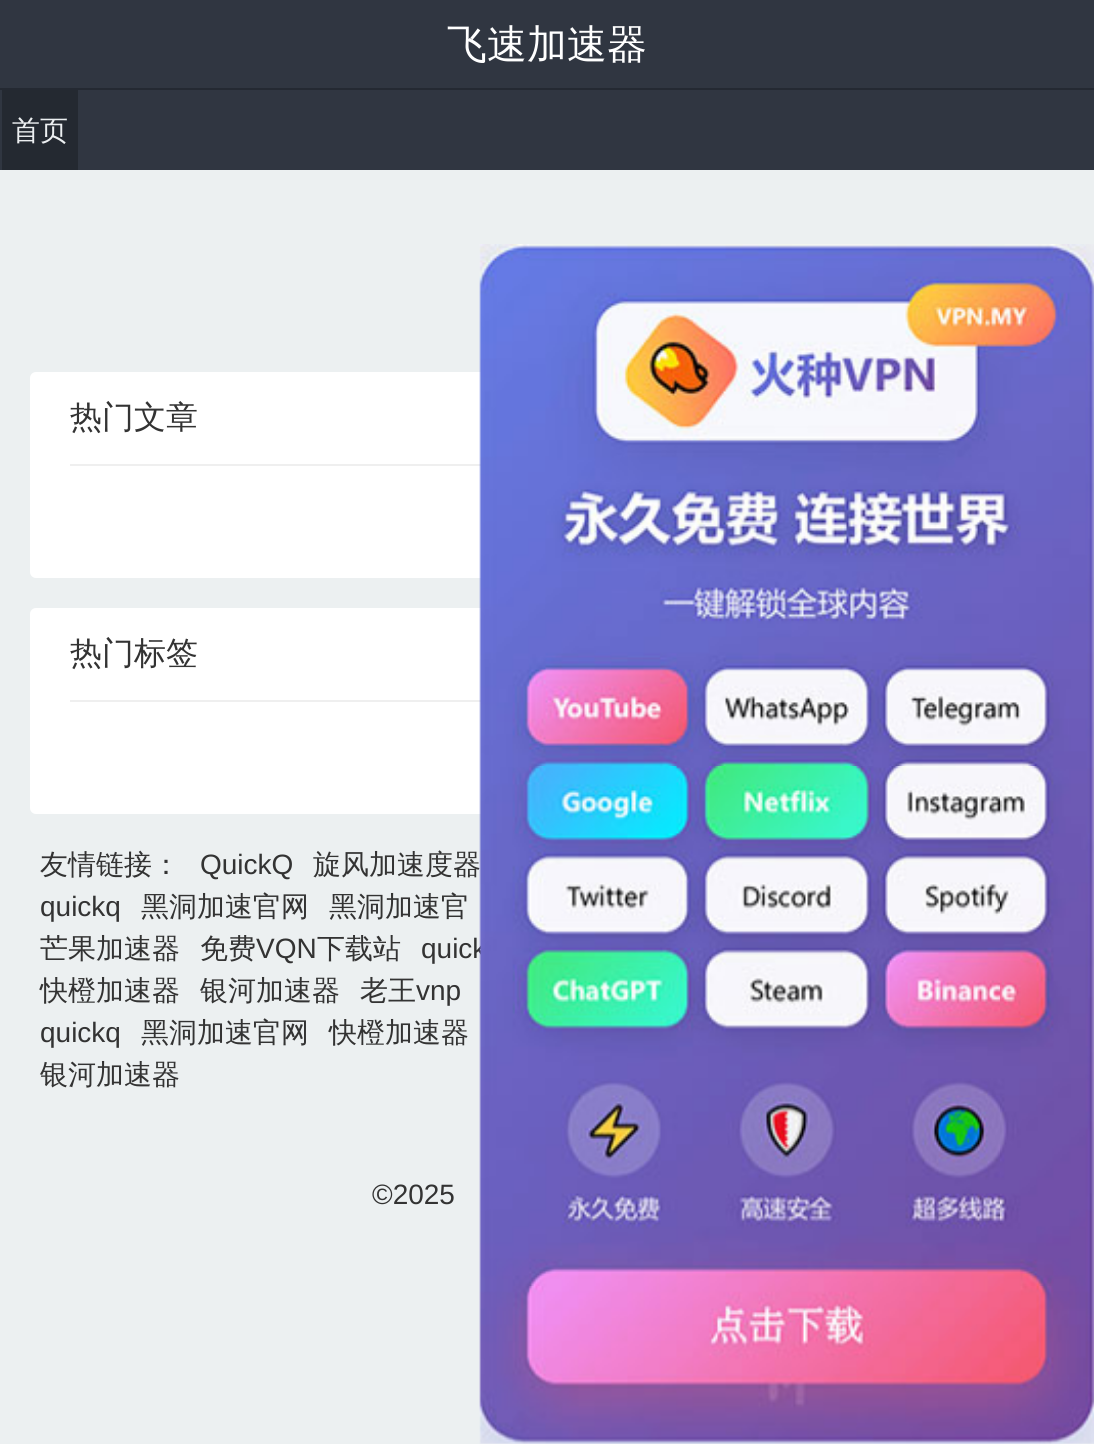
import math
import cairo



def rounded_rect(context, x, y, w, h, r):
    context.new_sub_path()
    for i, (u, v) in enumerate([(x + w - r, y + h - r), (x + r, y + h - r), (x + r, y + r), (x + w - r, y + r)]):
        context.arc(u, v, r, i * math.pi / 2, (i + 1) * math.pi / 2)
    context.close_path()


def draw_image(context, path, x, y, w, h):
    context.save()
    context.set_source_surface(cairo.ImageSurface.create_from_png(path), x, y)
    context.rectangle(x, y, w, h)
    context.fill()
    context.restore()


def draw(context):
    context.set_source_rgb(236 / 255, 240 / 255, 241 / 255)
    context.paint()
    context.set_source_rgb(48 / 255, 54 / 255, 65 / 255)
    context.rectangle(0, 0, 1094, 170)
    context.fill()
    context.set_source_rgb(36 / 255, 41 / 255, 50 / 255)
    context.rectangle(0, 88, 1094, 2)
    context.fill()
    context.set_source_rgb(36 / 255, 41 / 255, 49 / 255)
    context.rectangle(2, 90, 76, 80)
    context.fill()
    context.set_source_rgb(1, 1, 1)
    rounded_rect(context, 30, 372, 1034, 206, 6)
    context.fill()
    context.set_source_rgb(239 / 255, 239 / 255, 239 / 255)
    context.rectangle(70, 464, 411, 2)
    context.fill()
    context.set_source_rgb(1, 1, 1)
    rounded_rect(context, 30, 608, 1034, 206, 6)
    context.fill()
    context.set_source_rgb(239 / 255, 239 / 255, 239 / 255)
    context.rectangle(70, 700, 411, 2)
    context.fill()
    context.select_font_face("WenQuanYi Zen Hei Medium")
    context.set_font_size(40)
    context.set_source_rgb(1, 1, 1)
    context.move_to(447, 58)
    context.show_text("飞速加速器")
    context.set_font_size(28)
    context.set_source_rgb(236 / 255, 239 / 255, 241 / 255)
    context.move_to(12, 140)
    context.show_text("首页")
    context.set_font_size(32)
    context.set_source_rgb(51 / 255, 51 / 255, 51 / 255)
    context.move_to(70, 428)
    context.show_text("热门文章")
    context.move_to(70, 664)
    context.show_text("热门标签")
    context.set_font_size(28)
    context.move_to(40, 874)
    context.show_text("友情链接：")
    context.select_font_face("Liberation Sans")
    context.move_to(200, 874)
    context.show_text("QuickQ")
    context.select_font_face("WenQuanYi Zen Hei Medium")
    context.move_to(313, 874)
    context.show_text("旋风加速度器")
    context.select_font_face("Liberation Sans")
    context.move_to(40, 916)
    context.show_text("quickq")
    context.select_font_face("WenQuanYi Zen Hei Medium")
    context.move_to(141, 916)
    context.show_text("黑洞加速官网")
    context.move_to(329, 916)
    context.show_text("黑洞加速官")
    context.move_to(40, 958)
    context.show_text("芒果加速器")
    context.move_to(200, 958)
    context.show_text("免费")
    context.select_font_face("Liberation Sans")
    context.move_to(256, 958)
    context.show_text("VQN")
    context.select_font_face("WenQuanYi Zen Hei Medium")
    context.move_to(317, 958)
    context.show_text("下载站")
    context.select_font_face("Liberation Sans")
    context.move_to(421, 958)
    context.show_text("quick")
    draw_image(context, "images/1.png", 479, 244, 615, 1200)
    context.select_font_face("WenQuanYi Zen Hei Medium")
    context.move_to(40, 1000)
    context.show_text("快橙加速器")
    context.move_to(200, 1000)
    context.show_text("银河加速器")
    context.move_to(360, 1000)
    context.show_text("老王")
    context.select_font_face("Liberation Sans")
    context.move_to(416, 1000)
    context.show_text("vnp")
    context.move_to(40, 1042)
    context.show_text("quickq")
    context.select_font_face("WenQuanYi Zen Hei Medium")
    context.move_to(141, 1042)
    context.show_text("黑洞加速官网")
    context.move_to(329, 1042)
    context.show_text("快橙加速器")
    context.move_to(40, 1084)
    context.show_text("银河加速器")
    context.select_font_face("Liberation Sans")
    context.move_to(372, 1204)
    context.show_text("©2025")


surface = cairo.ImageSurface(cairo.Format.RGB24, 1094, 1444)
context = cairo.Context(surface)
options = cairo.FontOptions()
options.set_hint_metrics(cairo.HintMetrics.OFF)
options.set_hint_style(cairo.HintStyle.NONE)
context.set_font_options(options)
context.set_miter_limit(4)
draw(context)
surface.write_to_png("out.png")
